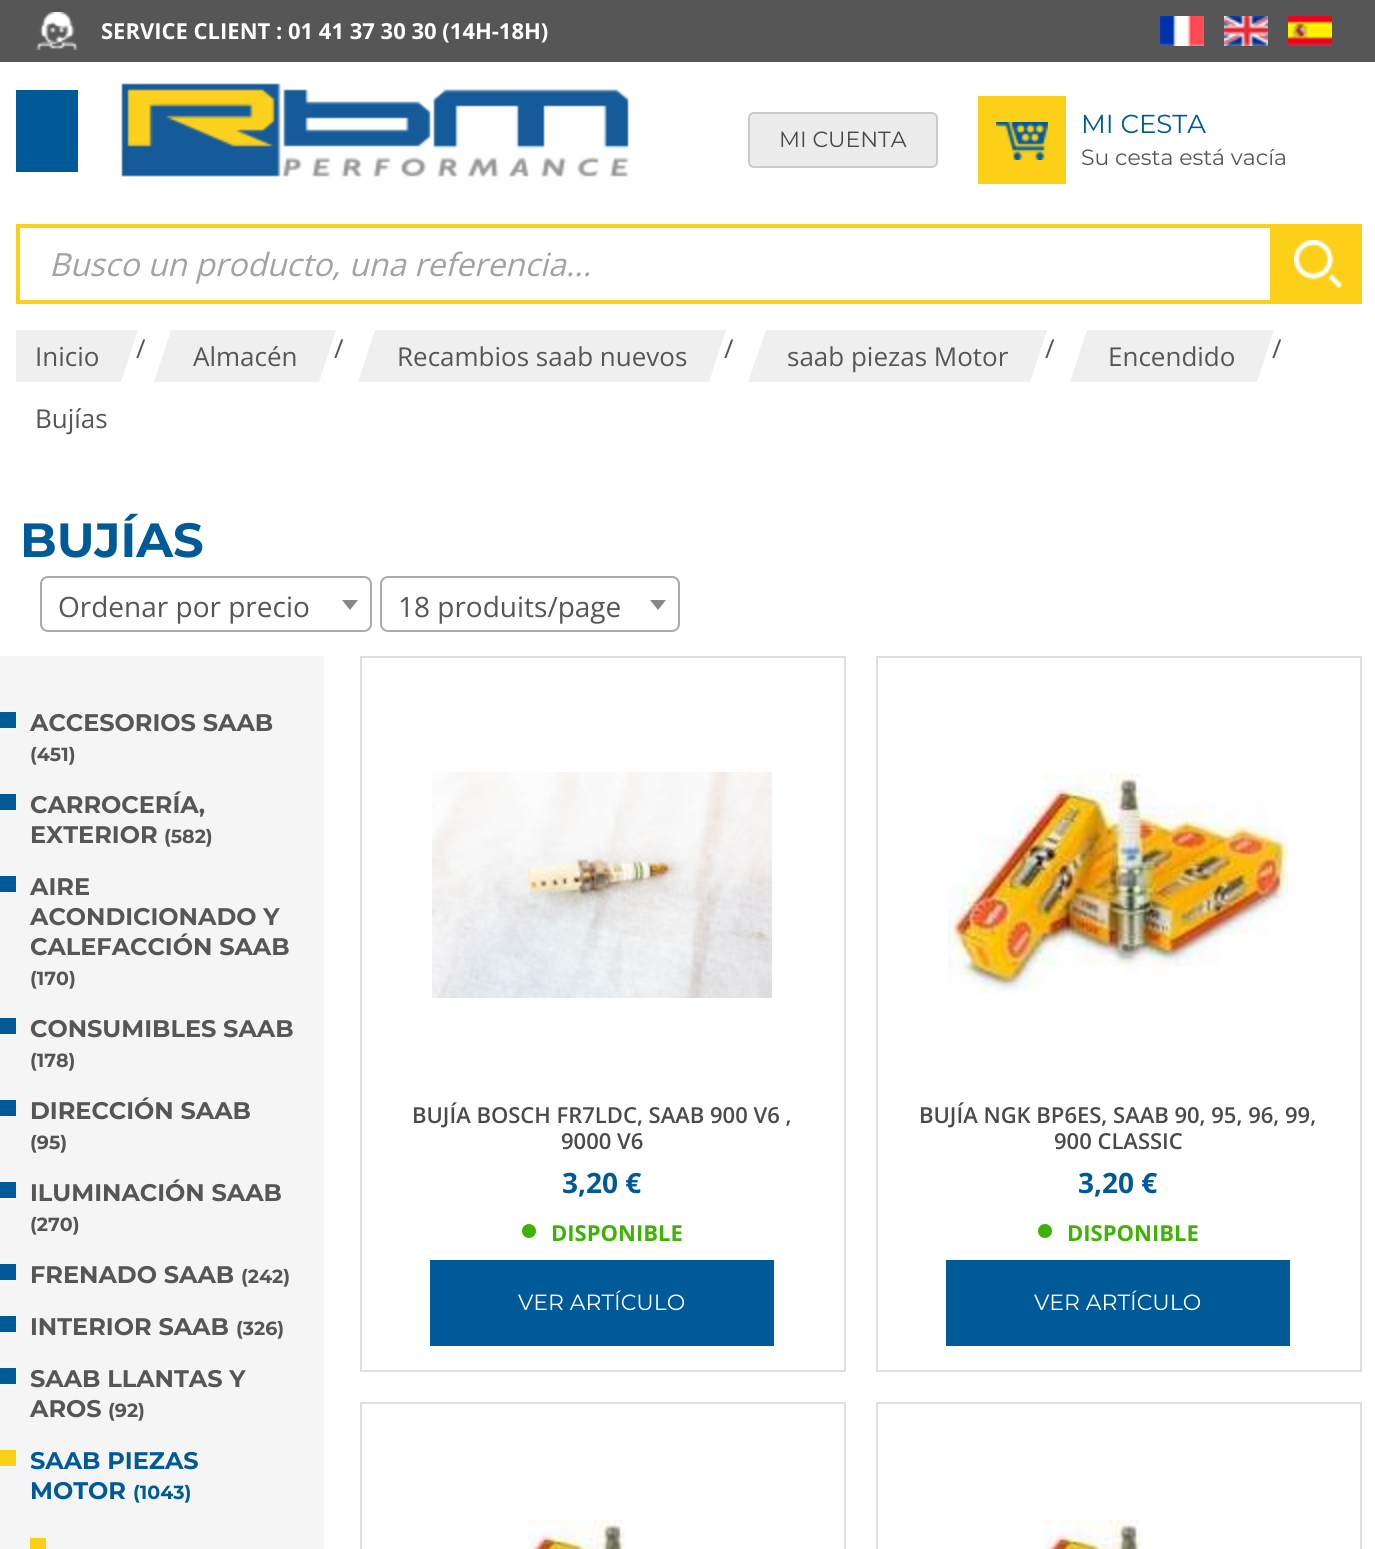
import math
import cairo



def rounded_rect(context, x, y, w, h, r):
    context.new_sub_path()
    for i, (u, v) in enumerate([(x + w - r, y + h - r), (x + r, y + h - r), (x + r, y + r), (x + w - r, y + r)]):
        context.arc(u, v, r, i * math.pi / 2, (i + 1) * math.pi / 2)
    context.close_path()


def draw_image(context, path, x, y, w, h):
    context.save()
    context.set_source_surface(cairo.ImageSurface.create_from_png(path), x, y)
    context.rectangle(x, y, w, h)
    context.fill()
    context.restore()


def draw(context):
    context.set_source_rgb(86 / 255, 86 / 255, 86 / 255)
    context.paint()
    draw_image(context, "images/1.png", 36, 12, 42, 38)
    draw_image(context, "images/2.png", 1160, 16, 44, 30)
    draw_image(context, "images/3.png", 1224, 16, 44, 30)
    draw_image(context, "images/4.png", 1288, 16, 44, 30)
    context.set_source_rgb(1, 1, 1)
    context.rectangle(0, 62, 1375, 1487)
    context.fill()
    context.set_source_rgb(0, 90 / 255, 151 / 255)
    context.rectangle(16, 90, 62, 82)
    context.fill()
    draw_image(context, "images/5.png", 121, 83, 508, 94)
    context.set_source_rgb(236 / 255, 236 / 255, 236 / 255)
    rounded_rect(context, 749, 113, 188, 54, 5)
    context.fill_preserve()
    context.set_source_rgb(203 / 255, 203 / 255, 203 / 255)
    context.stroke()
    context.set_source_rgb(252 / 255, 208 / 255, 24 / 255)
    context.rectangle(978, 96, 88, 88)
    context.fill()
    draw_image(context, "images/6.png", 996, 122, 52, 38)
    context.rectangle(18, 226, 1254, 76)
    context.set_line_width(4)
    context.stroke()
    context.rectangle(1274, 224, 88, 80)
    context.fill()
    draw_image(context, "images/7.png", 1294, 240, 48, 48)
    context.set_source_rgb(239 / 255, 239 / 255, 239 / 255)
    context.rectangle(16, 330, 18, 52)
    context.fill()
    rounded_rect(context, 41, 577, 330, 54, 7)
    context.set_source_rgb(170 / 255, 170 / 255, 170 / 255)
    context.set_line_width(2)
    context.stroke()
    context.set_source_rgb(136 / 255, 136 / 255, 136 / 255)
    context.new_path()
    context.move_to(342, 600)
    context.line_to(358, 600)
    context.line_to(350, 610)
    context.close_path()
    context.fill()
    rounded_rect(context, 381, 577, 298, 54, 7)
    context.set_source_rgb(170 / 255, 170 / 255, 170 / 255)
    context.stroke()
    context.set_source_rgb(136 / 255, 136 / 255, 136 / 255)
    context.new_path()
    context.move_to(650, 600)
    context.line_to(666, 600)
    context.line_to(658, 610)
    context.close_path()
    context.fill()
    context.set_source_rgb(245 / 255, 245 / 255, 245 / 255)
    context.rectangle(0, 656, 324, 893)
    context.fill()
    context.set_source_rgb(0, 90 / 255, 151 / 255)
    context.rectangle(0, 712, 16, 16)
    context.fill()
    context.rectangle(0, 794, 16, 16)
    context.fill()
    context.rectangle(0, 876, 16, 16)
    context.fill()
    context.rectangle(0, 1018, 16, 16)
    context.fill()
    context.rectangle(0, 1100, 16, 16)
    context.fill()
    context.rectangle(0, 1182, 16, 16)
    context.fill()
    context.rectangle(0, 1264, 16, 16)
    context.fill()
    context.rectangle(0, 1316, 16, 16)
    context.fill()
    context.rectangle(0, 1368, 16, 16)
    context.fill()
    context.set_source_rgb(252 / 255, 208 / 255, 24 / 255)
    context.rectangle(0, 1450, 16, 16)
    context.fill()
    context.rectangle(30, 1538, 16, 11)
    context.fill()
    context.rectangle(361, 657, 484, 714)
    context.set_source_rgb(223 / 255, 223 / 255, 223 / 255)
    context.stroke()
    draw_image(context, "images/8.png", 432, 772, 340, 226)
    context.set_source_rgb(62 / 255, 178 / 255, 6 / 255)
    context.arc(529, 1231, 7, 0, 2 * math.pi)
    context.fill()
    context.set_source_rgb(0, 90 / 255, 151 / 255)
    context.rectangle(430, 1260, 344, 86)
    context.fill()
    context.rectangle(877, 657, 484, 714)
    context.set_source_rgb(223 / 255, 223 / 255, 223 / 255)
    context.stroke()
    draw_image(context, "images/9.png", 948, 774, 340, 220)
    context.set_source_rgb(62 / 255, 178 / 255, 6 / 255)
    context.arc(1045, 1231, 7, 0, 2 * math.pi)
    context.fill()
    context.set_source_rgb(0, 90 / 255, 151 / 255)
    context.rectangle(946, 1260, 344, 86)
    context.fill()
    context.rectangle(361, 1403, 484, 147)
    context.set_source_rgb(223 / 255, 223 / 255, 223 / 255)
    context.stroke()
    draw_image(context, "images/10.png", 527, 1520, 99, 29)
    context.rectangle(877, 1403, 484, 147)
    context.stroke()
    draw_image(context, "images/10.png", 1043, 1520, 99, 29)
    context.select_font_face("Open Sans", cairo.FontSlant.NORMAL, cairo.FontWeight.BOLD)
    context.set_font_size(22)
    context.set_source_rgb(1, 1, 1)
    context.move_to(101, 39)
    context.show_text("SERVICE CLIENT : 01 41 37 30 30 (14H-18H)")
    context.select_font_face("Montserrat")
    context.set_source_rgb(74 / 255, 74 / 255, 74 / 255)
    context.move_to(779, 147)
    context.show_text("MI CUENTA")
    context.set_font_size(26)
    context.set_source_rgb(0, 90 / 255, 151 / 255)
    context.move_to(1081, 133)
    context.show_text("MI CESTA")
    context.set_font_size(22)
    context.set_source_rgb(86 / 255, 86 / 255, 86 / 255)
    context.move_to(1081, 165)
    context.show_text("Su cesta está vacía")
    context.select_font_face("Open Sans", cairo.FontSlant.ITALIC)
    context.set_font_size(32)
    context.set_source_rgb(164 / 255, 163 / 255, 163 / 255)
    context.move_to(49, 276)
    context.show_text("Busco un producto, una referencia...")
    context.select_font_face("Open Sans")
    context.set_font_size(26)
    context.set_source_rgb(86 / 255, 86 / 255, 86 / 255)
    context.move_to(136, 358)
    context.show_text("/")
    context.set_source_rgb(239 / 255, 239 / 255, 239 / 255)
    context.new_path()
    context.move_to(34, 330)
    context.line_to(138, 330)
    context.line_to(121, 382)
    context.line_to(16, 382)
    context.close_path()
    context.fill()
    context.set_source_rgb(86 / 255, 86 / 255, 86 / 255)
    context.move_to(35, 366)
    context.show_text("Inicio")
    context.move_to(334, 358)
    context.show_text("/")
    context.set_source_rgb(239 / 255, 239 / 255, 239 / 255)
    context.new_path()
    context.move_to(171, 330)
    context.line_to(336, 330)
    context.line_to(319, 382)
    context.line_to(154, 382)
    context.close_path()
    context.fill()
    context.set_source_rgb(86 / 255, 86 / 255, 86 / 255)
    context.move_to(193, 366)
    context.show_text("Almacén")
    context.move_to(724, 358)
    context.show_text("/")
    context.set_source_rgb(239 / 255, 239 / 255, 239 / 255)
    context.new_path()
    context.move_to(375, 330)
    context.line_to(726, 330)
    context.line_to(709, 382)
    context.line_to(358, 382)
    context.close_path()
    context.fill()
    context.set_source_rgb(86 / 255, 86 / 255, 86 / 255)
    context.move_to(397, 366)
    context.show_text("Recambios saab nuevos")
    context.move_to(1045, 358)
    context.show_text("/")
    context.set_source_rgb(239 / 255, 239 / 255, 239 / 255)
    context.new_path()
    context.move_to(766, 330)
    context.line_to(1047, 330)
    context.line_to(1030, 382)
    context.line_to(748, 382)
    context.close_path()
    context.fill()
    context.set_source_rgb(86 / 255, 86 / 255, 86 / 255)
    context.move_to(787, 366)
    context.show_text("saab piezas Motor")
    context.move_to(1272, 358)
    context.show_text("/")
    context.set_source_rgb(239 / 255, 239 / 255, 239 / 255)
    context.new_path()
    context.move_to(1087, 330)
    context.line_to(1274, 330)
    context.line_to(1257, 382)
    context.line_to(1070, 382)
    context.close_path()
    context.fill()
    context.set_source_rgb(86 / 255, 86 / 255, 86 / 255)
    context.move_to(1108, 366)
    context.show_text("Encendido")
    context.move_to(35, 428)
    context.show_text("Bujías")
    context.select_font_face("Montserrat", cairo.FontSlant.NORMAL, cairo.FontWeight.BOLD)
    context.set_font_size(48)
    context.set_source_rgb(0, 90 / 255, 151 / 255)
    context.move_to(20, 557)
    context.show_text("BUJÍAS")
    context.select_font_face("Open Sans")
    context.set_font_size(28)
    context.set_source_rgb(86 / 255, 86 / 255, 86 / 255)
    context.move_to(58, 617)
    context.show_text("Ordenar por precio")
    context.move_to(398, 617)
    context.show_text("18 produits/page")
    context.select_font_face("Montserrat", cairo.FontSlant.NORMAL, cairo.FontWeight.BOLD)
    context.set_font_size(24)
    context.move_to(30, 731)
    context.show_text("ACCESORIOS SAAB")
    context.set_font_size(19)
    context.move_to(30, 761)
    context.show_text("(451)")
    context.set_font_size(24)
    context.move_to(30, 813)
    context.show_text("CARROCERÍA,")
    context.move_to(30, 843)
    context.show_text("EXTERIOR")
    context.set_font_size(19)
    context.move_to(164, 843)
    context.show_text("(582)")
    context.set_font_size(24)
    context.move_to(30, 895)
    context.show_text("AIRE")
    context.move_to(30, 925)
    context.show_text("ACONDICIONADO Y")
    context.move_to(30, 955)
    context.show_text("CALEFACCIÓN SAAB")
    context.set_font_size(19)
    context.move_to(30, 985)
    context.show_text("(170)")
    context.set_font_size(24)
    context.move_to(30, 1037)
    context.show_text("CONSUMIBLES SAAB")
    context.set_font_size(19)
    context.move_to(30, 1067)
    context.show_text("(178)")
    context.set_font_size(24)
    context.move_to(30, 1119)
    context.show_text("DIRECCIÓN SAAB")
    context.set_font_size(19)
    context.move_to(30, 1149)
    context.show_text("(95)")
    context.set_font_size(24)
    context.move_to(30, 1201)
    context.show_text("ILUMINACIÓN SAAB")
    context.set_font_size(19)
    context.move_to(30, 1231)
    context.show_text("(270)")
    context.set_font_size(24)
    context.move_to(30, 1283)
    context.show_text("FRENADO SAAB")
    context.set_font_size(19)
    context.move_to(241, 1283)
    context.show_text("(242)")
    context.set_font_size(24)
    context.move_to(30, 1335)
    context.show_text("INTERIOR SAAB")
    context.set_font_size(19)
    context.move_to(236, 1335)
    context.show_text("(326)")
    context.set_font_size(24)
    context.move_to(30, 1387)
    context.show_text("SAAB LLANTAS Y")
    context.move_to(30, 1417)
    context.show_text("AROS")
    context.set_font_size(19)
    context.move_to(108, 1417)
    context.show_text("(92)")
    context.set_font_size(24)
    context.set_source_rgb(0, 90 / 255, 151 / 255)
    context.move_to(30, 1469)
    context.show_text("SAAB PIEZAS")
    context.move_to(30, 1499)
    context.show_text("MOTOR")
    context.set_font_size(19)
    context.move_to(133, 1499)
    context.show_text("(1043)")
    context.select_font_face("Open Sans SemiBold")
    context.set_font_size(22)
    context.set_source_rgb(74 / 255, 74 / 255, 74 / 255)
    context.move_to(412, 1123)
    context.show_text("BUJÍA BOSCH FR7LDC, SAAB 900 V6 ,")
    context.move_to(561, 1149)
    context.show_text("9000 V6")
    context.select_font_face("Open Sans", cairo.FontSlant.NORMAL, cairo.FontWeight.BOLD)
    context.set_font_size(28)
    context.set_source_rgb(0, 90 / 255, 151 / 255)
    context.move_to(562, 1193)
    context.show_text("3,20 €")
    context.set_font_size(22)
    context.set_source_rgb(62 / 255, 178 / 255, 6 / 255)
    context.move_to(551, 1241)
    context.show_text("DISPONIBLE")
    context.select_font_face("Montserrat")
    context.set_source_rgb(1, 1, 1)
    context.move_to(518, 1310)
    context.show_text("VER ARTÍCULO")
    context.select_font_face("Open Sans SemiBold")
    context.set_source_rgb(74 / 255, 74 / 255, 74 / 255)
    context.move_to(919, 1123)
    context.show_text("BUJÍA NGK BP6ES, SAAB 90, 95, 96, 99,")
    context.move_to(1054, 1149)
    context.show_text("900 CLASSIC")
    context.select_font_face("Open Sans", cairo.FontSlant.NORMAL, cairo.FontWeight.BOLD)
    context.set_font_size(28)
    context.set_source_rgb(0, 90 / 255, 151 / 255)
    context.move_to(1078, 1193)
    context.show_text("3,20 €")
    context.set_font_size(22)
    context.set_source_rgb(62 / 255, 178 / 255, 6 / 255)
    context.move_to(1067, 1241)
    context.show_text("DISPONIBLE")
    context.select_font_face("Montserrat")
    context.set_source_rgb(1, 1, 1)
    context.move_to(1034, 1310)
    context.show_text("VER ARTÍCULO")


surface = cairo.ImageSurface(cairo.Format.RGB24, 1375, 1549)
context = cairo.Context(surface)
options = cairo.FontOptions()
options.set_hint_metrics(cairo.HintMetrics.OFF)
options.set_hint_style(cairo.HintStyle.NONE)
context.set_font_options(options)
context.set_miter_limit(4)
draw(context)
surface.write_to_png("out.png")
